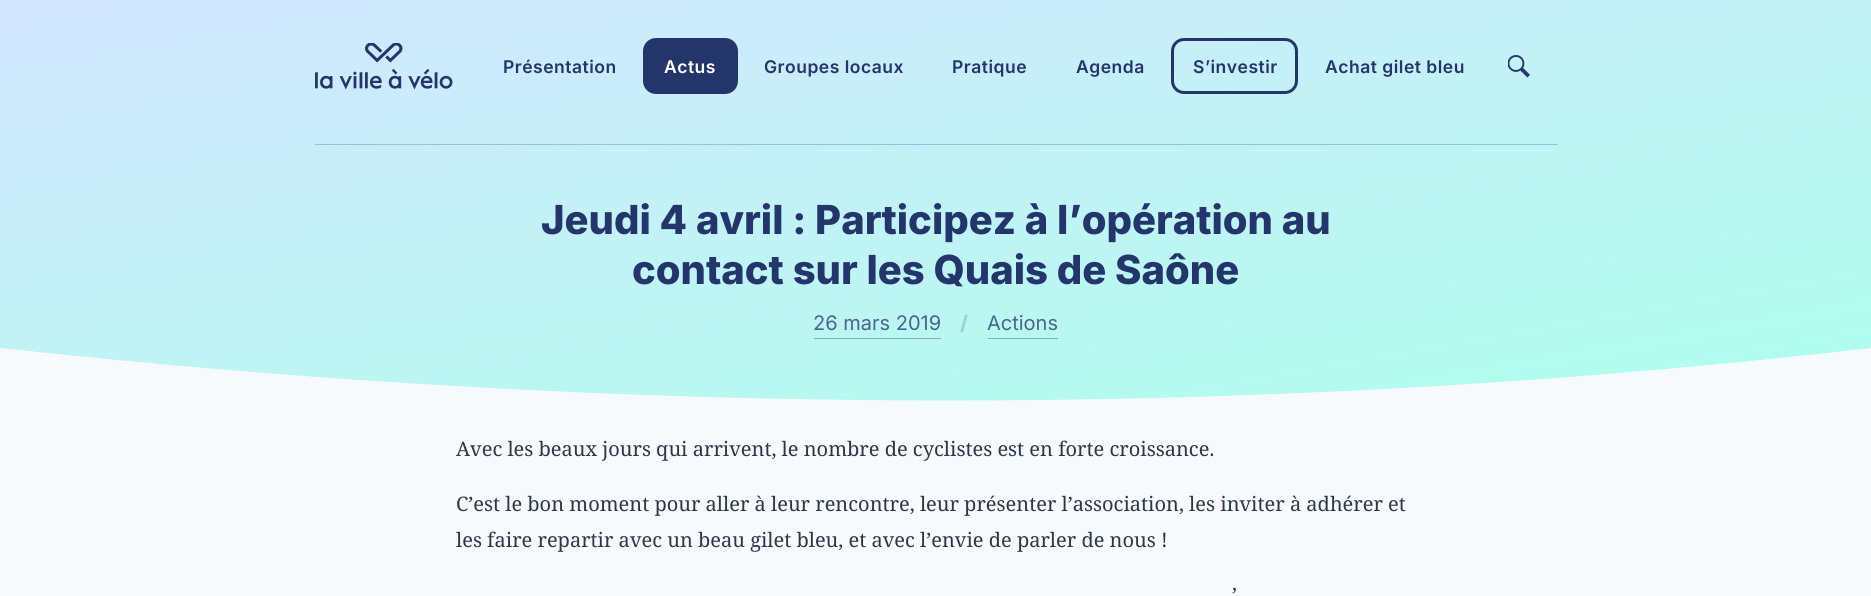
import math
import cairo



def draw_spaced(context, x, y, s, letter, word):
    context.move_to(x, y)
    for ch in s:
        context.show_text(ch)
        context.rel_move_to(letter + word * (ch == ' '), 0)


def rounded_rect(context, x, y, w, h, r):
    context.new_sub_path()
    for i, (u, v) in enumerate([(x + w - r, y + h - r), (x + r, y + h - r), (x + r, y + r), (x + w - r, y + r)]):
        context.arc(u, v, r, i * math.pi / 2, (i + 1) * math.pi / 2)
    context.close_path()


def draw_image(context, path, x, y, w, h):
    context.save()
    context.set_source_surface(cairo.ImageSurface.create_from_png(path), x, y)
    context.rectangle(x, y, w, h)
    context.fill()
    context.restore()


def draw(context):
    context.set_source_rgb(247 / 255, 250 / 255, 252 / 255)
    context.paint()
    gradient = cairo.LinearGradient(873, -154, 998, 555)
    gradient.add_color_stop_rgba(0, 211 / 255, 230 / 255, 1, 1)
    gradient.add_color_stop_rgba(1, 174 / 255, 1, 235 / 255, 1)
    context.set_source(gradient)
    context.rectangle(0, 0, 1871, 401)
    context.fill()
    gradient = cairo.LinearGradient(873, -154, 998, 555)
    gradient.add_color_stop_rgba(0, 167 / 255, 186 / 255, 218 / 255, 1)
    gradient.add_color_stop_rgba(1, 139 / 255, 205 / 255, 203 / 255, 1)
    context.set_source(gradient)
    context.rectangle(315, 144, 1243, 1)
    context.fill()
    context.set_source_rgb(247 / 255, 250 / 255, 252 / 255)
    context.set_fill_rule(cairo.FillRule.EVEN_ODD)
    context.new_path()
    context.move_to(0, 348)
    context.curve_to(623, 416, 1249, 420, 1871, 348)
    context.line_to(1871, 401)
    context.line_to(0, 401)
    context.close_path()
    context.fill()
    draw_image(context, "images/1.png", 315, 43, 138, 47)
    context.set_source_rgb(35 / 255, 53 / 255, 107 / 255)
    rounded_rect(context, 643, 38, 95, 56, 13)
    context.fill()
    rounded_rect(context, 1172.5, 39.5, 124, 53, 11.5)
    context.set_line_width(3)
    context.stroke()
    draw_image(context, "images/2.png", 1508, 55, 22, 23)
    context.set_source_rgb(130 / 255, 174 / 255, 191 / 255)
    context.rectangle(814, 338, 127, 1)
    context.fill()
    context.set_source_rgb(128 / 255, 175 / 255, 191 / 255)
    context.rectangle(988, 338, 70, 1)
    context.fill()
    context.select_font_face("Inter SemiBold")
    context.set_font_size(17.5)
    context.set_source_rgb(35 / 255, 53 / 255, 107 / 255)
    draw_spaced(context, 503, 73, "Présentation", 0.5, 0)
    context.set_source_rgb(1, 1, 1)
    draw_spaced(context, 664, 73, "Actus", 0.5, 0)
    context.set_source_rgb(35 / 255, 53 / 255, 107 / 255)
    draw_spaced(context, 764, 73, "Groupes locaux", 0.5, 0)
    draw_spaced(context, 952, 73, "Pratique", 0.5, 0)
    draw_spaced(context, 1076, 73, "Agenda", 0.5, 0)
    draw_spaced(context, 1193, 73, "S’investir", 0.5, 0)
    draw_spaced(context, 1325, 73, "Achat gilet bleu", 0.5, 0)
    context.select_font_face("Inter ExtraBold")
    context.set_font_size(40)
    context.move_to(541, 234)
    context.show_text("Jeudi 4 avril : Participez à l’opération au")
    context.move_to(632, 284)
    context.show_text("contact sur les Quais de Saône")
    context.select_font_face("Inter")
    context.set_font_size(20)
    context.set_source_rgb(73 / 255, 101 / 255, 141 / 255)
    context.move_to(813, 330)
    context.show_text("26 mars 2019")
    context.select_font_face("Inter ExtraBold")
    context.set_source_rgb(158 / 255, 211 / 255, 216 / 255)
    context.move_to(960, 330)
    context.show_text("/")
    context.select_font_face("Inter")
    context.set_source_rgb(73 / 255, 101 / 255, 141 / 255)
    context.move_to(987, 330)
    context.show_text("Actions")
    context.select_font_face("Noto Serif")
    context.set_source_rgb(45 / 255, 55 / 255, 72 / 255)
    context.move_to(456, 456)
    context.show_text("Avec les beaux jours qui arrivent, le nombre de cyclistes est en forte croissance.")
    context.move_to(456, 511)
    context.show_text("C’est le bon moment pour aller à leur rencontre, leur présenter l’association, les inviter à adhérer et")
    context.move_to(456, 547)
    context.show_text("les faire repartir avec un beau gilet bleu, et avec l’envie de parler de nous !")
    context.move_to(1232, 602)
    context.show_text("’")


surface = cairo.ImageSurface(cairo.Format.RGB24, 1871, 596)
context = cairo.Context(surface)
options = cairo.FontOptions()
options.set_hint_metrics(cairo.HintMetrics.OFF)
options.set_hint_style(cairo.HintStyle.NONE)
context.set_font_options(options)
context.set_miter_limit(4)
draw(context)
surface.write_to_png("out.png")
